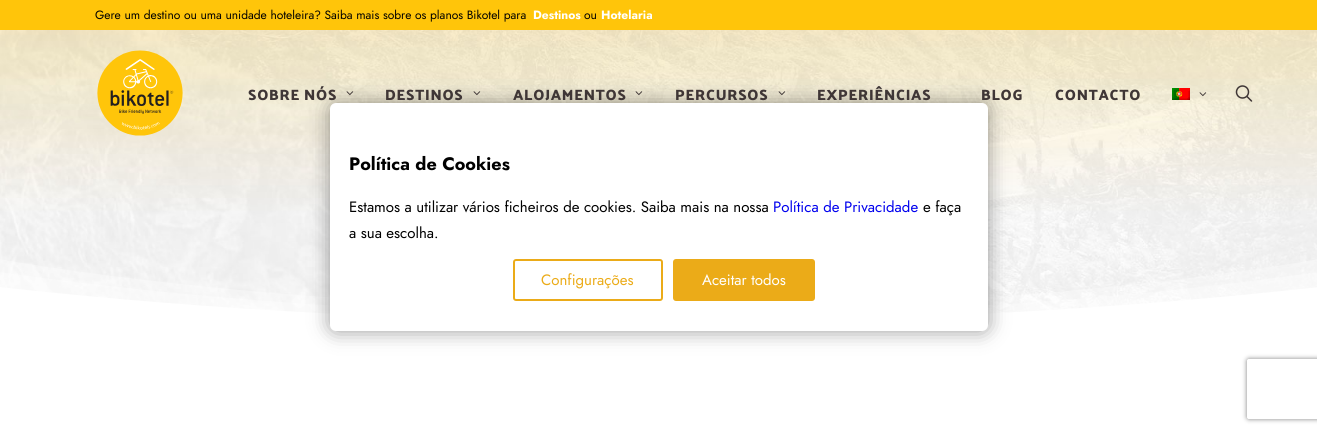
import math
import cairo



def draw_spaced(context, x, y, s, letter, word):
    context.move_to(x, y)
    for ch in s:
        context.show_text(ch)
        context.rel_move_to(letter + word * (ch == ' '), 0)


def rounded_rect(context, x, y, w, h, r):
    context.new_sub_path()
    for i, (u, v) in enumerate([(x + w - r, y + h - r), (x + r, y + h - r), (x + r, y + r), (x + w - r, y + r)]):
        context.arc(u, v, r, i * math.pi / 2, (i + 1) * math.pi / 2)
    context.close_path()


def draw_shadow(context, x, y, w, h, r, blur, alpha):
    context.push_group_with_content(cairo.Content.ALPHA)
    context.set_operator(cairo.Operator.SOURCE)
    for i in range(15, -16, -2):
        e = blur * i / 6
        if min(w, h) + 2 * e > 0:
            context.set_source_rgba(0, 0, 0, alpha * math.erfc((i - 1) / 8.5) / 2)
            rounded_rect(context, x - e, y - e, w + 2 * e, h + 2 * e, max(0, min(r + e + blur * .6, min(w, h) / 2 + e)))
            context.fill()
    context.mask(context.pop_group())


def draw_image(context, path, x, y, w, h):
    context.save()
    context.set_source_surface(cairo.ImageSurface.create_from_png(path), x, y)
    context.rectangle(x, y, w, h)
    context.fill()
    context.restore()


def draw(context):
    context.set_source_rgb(1, 1, 1)
    context.paint()
    context.set_source_rgb(1, 197 / 255, 10 / 255)
    context.rectangle(0, 0, 1317, 30)
    context.fill()
    draw_image(context, "images/9.png", 0, 30, 1317, 284)
    draw_image(context, "images/1.png", 97, 50, 86, 86)
    draw_image(context, "images/2.png", 346, 91, 8, 5)
    draw_image(context, "images/3.png", 473, 91, 8, 5)
    draw_image(context, "images/4.png", 635, 91, 8, 5)
    draw_image(context, "images/5.png", 778, 91, 8, 5)
    draw_image(context, "images/6.png", 1172, 88, 18, 12)
    draw_image(context, "images/7.png", 1199, 92, 8, 5)
    draw_image(context, "images/8.png", 1235, 85, 18, 17)
    context.set_source_rgba(1, 1, 1, 0.33)
    context.new_path()
    context.move_to(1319, 259)
    context.line_to(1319, 323)
    context.line_to(-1, 323)
    context.line_to(-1, 259)
    context.curve_to(-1, 259, 262, 309, 658, 309)
    context.curve_to(1054, 309, 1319, 259, 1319, 259)
    context.close_path()
    context.fill()
    context.new_path()
    context.move_to(658, 316)
    context.curve_to(964, 316, 1200, 289, 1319, 272)
    context.line_to(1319, 323)
    context.line_to(-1, 323)
    context.line_to(-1, 272)
    context.curve_to(118, 289, 353, 316, 658, 316)
    context.close_path()
    context.fill()
    context.set_source_rgb(1, 1, 1)
    context.new_path()
    context.move_to(658, 322)
    context.curve_to(937, 322, 1166, 304, 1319, 287)
    context.line_to(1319, 323)
    context.line_to(-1, 323)
    context.line_to(-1, 287)
    context.curve_to(151, 304, 379, 322, 658, 322)
    context.close_path()
    context.fill()
    context.save()
    context.set_fill_rule(cairo.FillRule.EVEN_ODD)
    context.new_path()
    context.move_to(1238, 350)
    context.line_to(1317, 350)
    context.line_to(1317, 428)
    context.line_to(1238, 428)
    context.close_path()
    context.move_to(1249, 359)
    context.line_to(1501, 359)
    context.curve_to(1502, 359, 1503, 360, 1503, 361)
    context.line_to(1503, 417)
    context.curve_to(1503, 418, 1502, 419, 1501, 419)
    context.line_to(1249, 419)
    context.curve_to(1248, 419, 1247, 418, 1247, 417)
    context.line_to(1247, 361)
    context.curve_to(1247, 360, 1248, 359, 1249, 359)
    context.close_path()
    context.clip()
    context.set_source_rgb(128 / 255, 128 / 255, 128 / 255)
    draw_shadow(context, 1247, 359, 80, 60, 2, 2.5, 1)
    context.restore()
    context.set_source_rgb(0, 0, 0)
    draw_shadow(context, 330, 103, 658, 228, 6, 10, 0.4)
    context.set_source_rgb(1, 1, 1)
    rounded_rect(context, 330, 103, 658, 228, 6)
    context.fill()
    rounded_rect(context, 514, 260, 148, 40, 2)
    context.set_source_rgb(235 / 255, 171 / 255, 24 / 255)
    context.stroke()
    rounded_rect(context, 674, 260, 140, 40, 2)
    context.fill_preserve()
    context.stroke()
    context.select_font_face("Jost")
    context.set_font_size(12)
    context.set_source_rgb(0, 0, 0)
    context.move_to(95, 19)
    context.show_text("Gere um destino ou uma unidade hoteleira? Saiba mais sobre os planos Bikotel para")
    context.select_font_face("Jost", cairo.FontSlant.NORMAL, cairo.FontWeight.BOLD)
    context.set_source_rgb(1, 1, 1)
    context.move_to(533, 19)
    context.show_text("Destinos")
    context.select_font_face("Jost")
    context.set_source_rgb(0, 0, 0)
    context.move_to(584, 19)
    context.show_text("ou")
    context.select_font_face("Jost", cairo.FontSlant.NORMAL, cairo.FontWeight.BOLD)
    context.set_source_rgb(1, 1, 1)
    context.move_to(601, 19)
    context.show_text("Hotelaria")
    context.select_font_face("Palanquin Dark SemiBold")
    context.set_font_size(15)
    context.set_source_rgb(63 / 255, 54 / 255, 54 / 255)
    draw_spaced(context, 248, 100, "SOBRE NÓS", 0.75, 0)
    draw_spaced(context, 385, 100, "DESTINOS", 0.75, 0)
    draw_spaced(context, 513, 100, "ALOJAMENTOS", 0.75, 0)
    draw_spaced(context, 675, 100, "PERCURSOS", 0.75, 0)
    draw_spaced(context, 817, 100, "EXPERIÊNCIAS", 0.75, 0)
    draw_spaced(context, 981, 100, "BLOG", 0.75, 0)
    draw_spaced(context, 1055, 100, "CONTACTO", 0.75, 0)
    context.select_font_face("Jost", cairo.FontSlant.NORMAL, cairo.FontWeight.BOLD)
    context.set_font_size(18)
    context.set_source_rgb(0, 0, 0)
    context.move_to(349, 170)
    context.show_text("Política de Cookies")
    context.select_font_face("Jost")
    context.set_font_size(15)
    context.move_to(349, 212)
    context.show_text("Estamos a utilizar vários ficheiros de cookies. Saiba mais na nossa")
    context.set_source_rgb(0, 0, 238 / 255)
    context.move_to(773, 212)
    context.show_text("Política de Privacidade")
    context.set_source_rgb(0, 0, 0)
    context.move_to(923, 212)
    context.show_text("e faça")
    context.move_to(349, 238)
    context.show_text("a sua escolha.")
    context.set_source_rgb(235 / 255, 171 / 255, 24 / 255)
    context.move_to(541, 285)
    context.show_text("Configurações")
    context.set_source_rgb(1, 1, 1)
    context.move_to(702, 285)
    context.show_text("Aceitar todos")


surface = cairo.ImageSurface(cairo.Format.RGB24, 1317, 433)
context = cairo.Context(surface)
options = cairo.FontOptions()
options.set_hint_metrics(cairo.HintMetrics.OFF)
options.set_hint_style(cairo.HintStyle.NONE)
context.set_font_options(options)
context.set_miter_limit(4)
draw(context)
surface.write_to_png("out.png")
